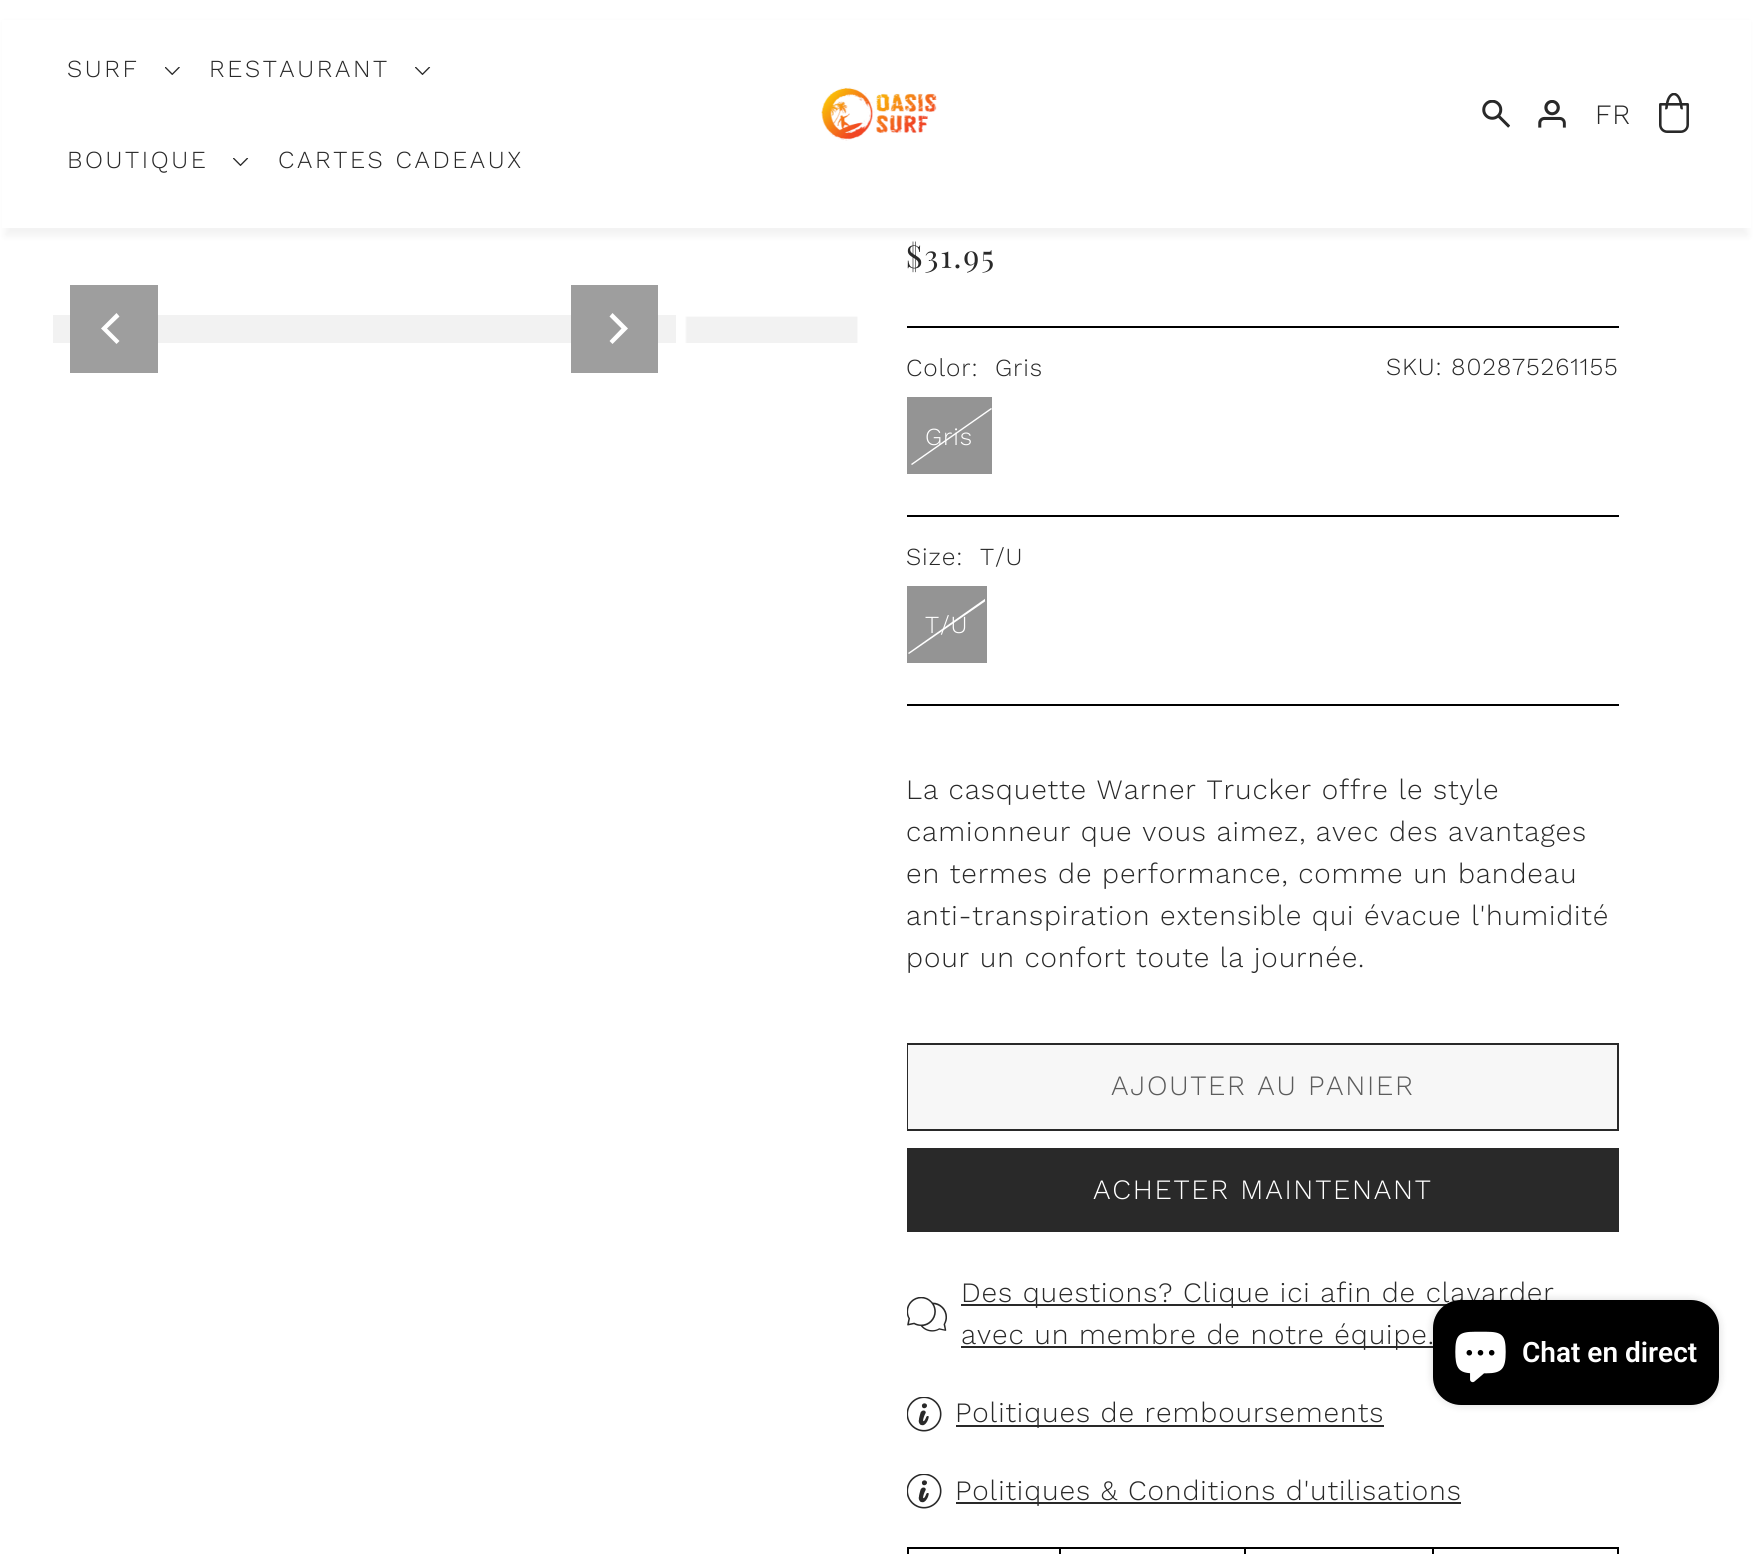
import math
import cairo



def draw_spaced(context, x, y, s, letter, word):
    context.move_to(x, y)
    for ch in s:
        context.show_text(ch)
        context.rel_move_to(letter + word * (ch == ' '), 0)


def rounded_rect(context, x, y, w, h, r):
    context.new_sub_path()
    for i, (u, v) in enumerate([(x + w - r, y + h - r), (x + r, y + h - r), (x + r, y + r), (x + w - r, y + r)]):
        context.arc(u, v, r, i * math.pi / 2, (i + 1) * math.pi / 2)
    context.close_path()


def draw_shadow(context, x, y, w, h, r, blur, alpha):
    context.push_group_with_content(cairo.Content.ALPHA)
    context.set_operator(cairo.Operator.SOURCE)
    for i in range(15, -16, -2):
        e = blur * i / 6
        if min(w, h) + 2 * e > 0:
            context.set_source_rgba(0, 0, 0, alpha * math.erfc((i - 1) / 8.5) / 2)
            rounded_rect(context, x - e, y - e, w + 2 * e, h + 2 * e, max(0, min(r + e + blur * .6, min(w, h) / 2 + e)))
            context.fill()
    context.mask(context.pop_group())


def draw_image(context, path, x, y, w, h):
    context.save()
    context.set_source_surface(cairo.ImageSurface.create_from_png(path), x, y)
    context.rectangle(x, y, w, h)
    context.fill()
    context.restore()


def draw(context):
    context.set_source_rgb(1, 1, 1)
    context.paint()
    context.set_source_rgb(0, 0, 0)
    draw_shadow(context, 5, 23, 1743, 213, 0, 3.5, 0.05)
    context.set_source_rgb(1, 1, 1)
    context.rectangle(2, 20, 1749, 208)
    context.fill()
    draw_image(context, "images/1.png", 165, 67, 15, 8)
    draw_image(context, "images/2.png", 415, 67, 16, 8)
    draw_image(context, "images/2.png", 233, 158, 16, 8)
    draw_image(context, "images/3.png", 821, 87, 116, 54)
    draw_image(context, "images/4.png", 1482, 100, 28, 28)
    draw_image(context, "images/5.png", 1538, 100, 28, 28)
    draw_image(context, "images/6.png", 1659, 93, 30, 40)
    context.set_source_rgb(242 / 255, 242 / 255, 242 / 255)
    context.rectangle(53, 315, 623, 28)
    context.fill()
    context.set_source_rgb(158 / 255, 158 / 255, 158 / 255)
    context.rectangle(70, 285, 88, 88)
    context.fill()
    context.set_source_rgb(1, 1, 1)
    context.new_path()
    context.move_to(101, 328.5)
    context.line_to(116.5, 344)
    context.line_to(119.5, 341)
    context.line_to(107, 328.5)
    context.line_to(119.5, 316.5)
    context.line_to(116.5, 313)
    context.close_path()
    context.fill()
    context.set_source_rgb(158 / 255, 158 / 255, 158 / 255)
    context.rectangle(571, 285, 87, 88)
    context.fill()
    context.set_source_rgb(1, 1, 1)
    context.new_path()
    context.move_to(628, 328.5)
    context.line_to(612.5, 313)
    context.line_to(609.5, 316.5)
    context.line_to(621.5, 328.5)
    context.line_to(609.5, 341)
    context.line_to(612.5, 344)
    context.close_path()
    context.fill()
    draw_image(context, "images/7.png", 685, 316, 173, 27)
    context.set_source_rgb(0, 0, 0)
    context.rectangle(907, 704, 712, 2)
    context.fill()
    context.rectangle(907, 326, 712, 2)
    context.fill()
    context.set_source_rgb(148 / 255, 148 / 255, 148 / 255)
    context.rectangle(907, 397, 85, 77)
    context.fill()
    context.set_source_rgb(1, 1, 1)
    context.new_path()
    context.move_to(991, 408)
    context.line_to(992, 409)
    context.line_to(912, 465)
    context.line_to(911, 464)
    context.close_path()
    context.fill()
    context.set_source_rgb(0, 0, 0)
    context.rectangle(907, 515, 712, 2)
    context.fill()
    context.set_source_rgb(148 / 255, 148 / 255, 148 / 255)
    context.rectangle(907, 586, 80, 77)
    context.fill()
    context.save()
    context.rectangle(908, 588, 77, 74)
    context.clip()
    context.set_source_rgb(1, 1, 1)
    context.new_path()
    context.move_to(989, 596)
    context.line_to(990, 598)
    context.line_to(909, 654)
    context.line_to(908, 653)
    context.close_path()
    context.fill()
    context.restore()
    context.rectangle(908, 1044, 710, 86)
    context.set_source_rgb(41 / 255, 41 / 255, 41 / 255)
    context.stroke()
    context.set_source_rgb(247 / 255, 247 / 255, 247 / 255)
    context.rectangle(908, 1045, 709, 84)
    context.fill()
    context.set_source_rgb(41 / 255, 41 / 255, 41 / 255)
    context.rectangle(907, 1148, 712, 84)
    context.fill()
    draw_image(context, "images/8.png", 907, 1297, 40, 35)
    context.rectangle(961, 1304, 486, 2)
    context.fill()
    context.rectangle(961, 1346, 474, 2)
    context.fill()
    draw_image(context, "images/9.png", 907, 1397, 35, 35)
    context.rectangle(956, 1425, 428, 2)
    context.fill()
    draw_image(context, "images/9.png", 907, 1474, 35, 35)
    context.rectangle(956, 1502, 505, 2)
    context.fill()
    context.rectangle(908, 1548, 710, 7)
    context.set_source_rgb(0, 0, 0)
    context.stroke()
    context.rectangle(1059, 1549, 2, 5)
    context.fill()
    context.rectangle(1244, 1549, 2, 5)
    context.fill()
    context.rectangle(1432, 1549, 2, 5)
    context.fill()
    context.set_source_rgb(0, 0, 0)
    draw_shadow(context, 1433, 1300, 286, 105, 28, 4.5, 0.15)
    context.select_font_face("Work Sans Light")
    context.set_font_size(24.5)
    context.set_source_rgb(41 / 255, 41 / 255, 41 / 255)
    draw_spaced(context, 67, 77, "SURF", 2.6, 0)
    draw_spaced(context, 209, 77, "RESTAURANT", 2.6, 0)
    draw_spaced(context, 67, 168, "BOUTIQUE", 2.6, 0)
    draw_spaced(context, 278, 168, "CARTES CADEAUX", 2.6, 0)
    context.set_font_size(28)
    draw_spaced(context, 1595, 124, "FR", 0.88, 0)
    context.select_font_face("Playfair Display")
    context.set_font_size(31.5)
    draw_spaced(context, 906, 268, "$31.95", 1.75, 0)
    context.select_font_face("Work Sans Light")
    context.set_font_size(24.5)
    draw_spaced(context, 906, 376, "Color:", 0.88, 0)
    draw_spaced(context, 995, 376, "Gris", 0.88, 0)
    context.set_source_rgb(1, 1, 1)
    draw_spaced(context, 925, 445, "Gris", 0.88, 0)
    context.set_source_rgb(41 / 255, 41 / 255, 41 / 255)
    draw_spaced(context, 906, 565, "Size:", 0.88, 0)
    draw_spaced(context, 980, 565, "T/U", 0.88, 0)
    context.set_source_rgb(1, 1, 1)
    draw_spaced(context, 925, 633, "T/U", 0.88, 0)
    context.set_source_rgb(41 / 255, 41 / 255, 41 / 255)
    draw_spaced(context, 1386, 375, "SKU: 802875261155", 0.88, 0)
    context.set_font_size(28)
    draw_spaced(context, 906, 799, "La casquette Warner Trucker offre le style", 0.88, 0)
    draw_spaced(context, 906, 841, "camionneur que vous aimez, avec des avantages", 0.88, 0)
    draw_spaced(context, 906, 883, "en termes de performance, comme un bandeau", 0.88, 0)
    draw_spaced(context, 906, 925, "anti-transpiration extensible qui évacue l'humidité", 0.88, 0)
    draw_spaced(context, 906, 967, "pour un confort toute la journée.", 0.88, 0)
    context.set_source_rgb(92 / 255, 92 / 255, 92 / 255)
    draw_spaced(context, 1111, 1095, "AJOUTER AU PANIER", 1.75, 0)
    context.set_source_rgb(1, 1, 1)
    draw_spaced(context, 1093, 1199, "ACHETER MAINTENANT", 1.75, 0)
    context.set_source_rgb(41 / 255, 41 / 255, 41 / 255)
    draw_spaced(context, 961, 1302, "Des questions? Clique ici afin de clavarder", 0.88, 0)
    draw_spaced(context, 961, 1344, "avec un membre de notre équipe.", 0.88, 0)
    draw_spaced(context, 955, 1422, "Politiques de remboursements", 0.88, 0)
    draw_spaced(context, 955, 1500, "Politiques & Conditions d'utilisations", 0.88, 0)
    context.set_source_rgb(0, 0, 0)
    rounded_rect(context, 1433, 1300, 286, 105, 28)
    context.fill()
    draw_image(context, "images/10.png", 1455, 1331, 51, 52)
    context.select_font_face("Roboto SemiBold")
    context.set_source_rgb(1, 1, 1)
    context.move_to(1522, 1362)
    context.show_text("Chat en direct")


surface = cairo.ImageSurface(cairo.Format.RGB24, 1756, 1554)
context = cairo.Context(surface)
options = cairo.FontOptions()
options.set_hint_metrics(cairo.HintMetrics.OFF)
options.set_hint_style(cairo.HintStyle.NONE)
context.set_font_options(options)
context.set_miter_limit(4)
draw(context)
surface.write_to_png("out.png")
